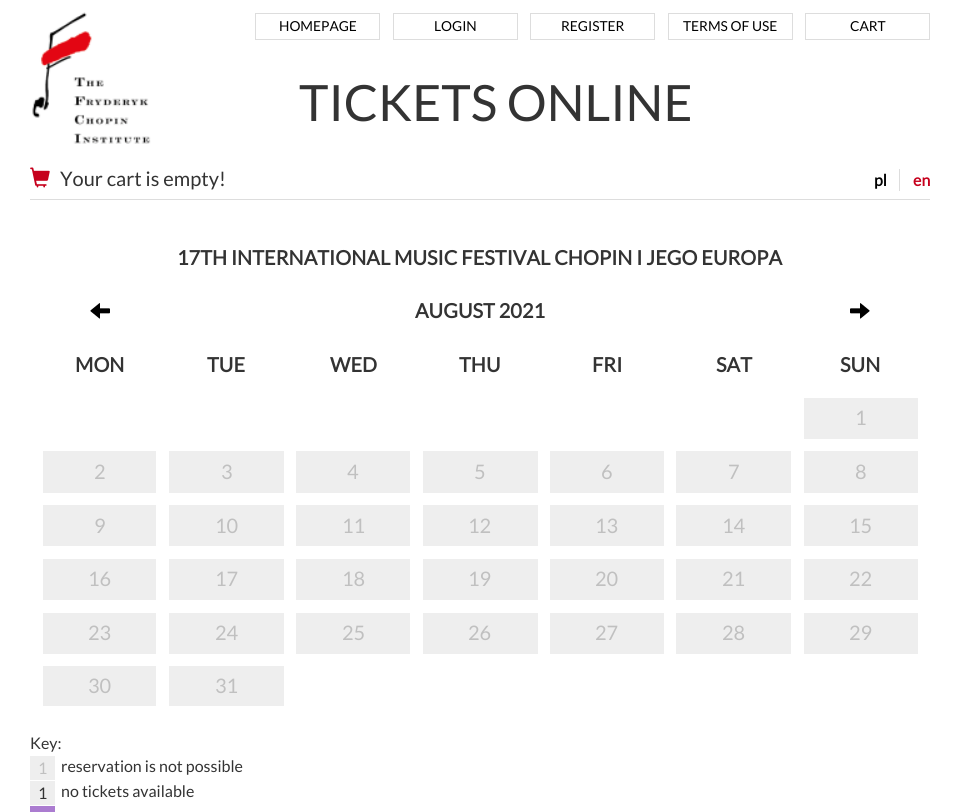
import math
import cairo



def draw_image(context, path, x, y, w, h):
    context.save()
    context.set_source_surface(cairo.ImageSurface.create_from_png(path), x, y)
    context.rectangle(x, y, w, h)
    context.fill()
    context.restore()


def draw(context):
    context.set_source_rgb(1, 1, 1)
    context.paint()
    context.set_source_rgb(221 / 255, 221 / 255, 221 / 255)
    context.rectangle(30, 199, 900, 1)
    context.fill()
    draw_image(context, "images/1.png", 32, 12, 119, 132)
    context.rectangle(255.5, 13.5, 124, 26)
    context.set_line_width(1)
    context.stroke()
    context.rectangle(393.5, 13.5, 124, 26)
    context.stroke()
    context.rectangle(530.5, 13.5, 124, 26)
    context.stroke()
    context.rectangle(668.5, 13.5, 124, 26)
    context.stroke()
    context.rectangle(805.5, 13.5, 124, 26)
    context.stroke()
    draw_image(context, "images/2.png", 30, 167, 20, 21)
    context.rectangle(899, 169, 1, 22)
    context.fill()
    draw_image(context, "images/3.png", 90, 303, 20, 16)
    draw_image(context, "images/4.png", 850, 303, 20, 16)
    context.set_source_rgb(238 / 255, 238 / 255, 238 / 255)
    context.rectangle(804, 398, 114, 41)
    context.fill()
    context.rectangle(43, 451, 113, 42)
    context.fill()
    context.rectangle(169, 451, 115, 42)
    context.fill()
    context.rectangle(296, 451, 114, 42)
    context.fill()
    context.rectangle(423, 451, 115, 42)
    context.fill()
    context.rectangle(550, 451, 114, 42)
    context.fill()
    context.rectangle(676, 451, 115, 42)
    context.fill()
    context.rectangle(804, 451, 114, 42)
    context.fill()
    context.rectangle(43, 505, 113, 41)
    context.fill()
    context.rectangle(169, 505, 115, 41)
    context.fill()
    context.rectangle(296, 505, 114, 41)
    context.fill()
    context.rectangle(423, 505, 115, 41)
    context.fill()
    context.rectangle(550, 505, 114, 41)
    context.fill()
    context.rectangle(676, 505, 115, 41)
    context.fill()
    context.rectangle(804, 505, 114, 41)
    context.fill()
    context.rectangle(43, 559, 113, 41)
    context.fill()
    context.rectangle(169, 559, 115, 41)
    context.fill()
    context.rectangle(296, 559, 114, 41)
    context.fill()
    context.rectangle(423, 559, 115, 41)
    context.fill()
    context.rectangle(550, 559, 114, 41)
    context.fill()
    context.rectangle(676, 559, 115, 41)
    context.fill()
    context.rectangle(804, 559, 114, 41)
    context.fill()
    context.rectangle(43, 613, 113, 41)
    context.fill()
    context.rectangle(169, 613, 115, 41)
    context.fill()
    context.rectangle(296, 613, 114, 41)
    context.fill()
    context.rectangle(423, 613, 115, 41)
    context.fill()
    context.rectangle(550, 613, 114, 41)
    context.fill()
    context.rectangle(676, 613, 115, 41)
    context.fill()
    context.rectangle(804, 613, 114, 41)
    context.fill()
    context.rectangle(43, 666, 113, 40)
    context.fill()
    context.rectangle(169, 666, 115, 40)
    context.fill()
    context.rectangle(30, 756, 25, 24)
    context.fill()
    context.rectangle(30, 781, 25, 24)
    context.fill()
    context.set_source_rgb(171 / 255, 124 / 255, 208 / 255)
    context.rectangle(30, 806, 25, 6)
    context.fill()
    context.select_font_face("Lato")
    context.set_font_size(13.75)
    context.set_source_rgb(0, 0, 0)
    context.move_to(279, 31)
    context.show_text("HOMEPAGE")
    context.move_to(434, 31)
    context.show_text("LOGIN")
    context.move_to(561, 31)
    context.show_text("REGISTER")
    context.move_to(683, 31)
    context.show_text("TERMS OF USE")
    context.move_to(850, 31)
    context.show_text("CART")
    context.set_font_size(50)
    context.set_source_rgb(51 / 255, 51 / 255, 51 / 255)
    context.move_to(299, 121)
    context.show_text("TICKETS ONLINE")
    context.set_font_size(20)
    context.move_to(60, 186)
    context.show_text("Your cart is empty!")
    context.select_font_face("Lato", cairo.FontSlant.NORMAL, cairo.FontWeight.BOLD)
    context.set_font_size(16)
    context.set_source_rgb(0, 0, 0)
    context.move_to(874, 186)
    context.show_text("pl")
    context.set_source_rgb(198 / 255, 0, 28 / 255)
    context.move_to(913, 186)
    context.show_text("en")
    context.set_font_size(20)
    context.set_source_rgb(51 / 255, 51 / 255, 51 / 255)
    context.move_to(177, 265)
    context.show_text("17TH INTERNATIONAL MUSIC FESTIVAL CHOPIN I JEGO EUROPA")
    context.move_to(415, 318)
    context.show_text("AUGUST 2021")
    context.move_to(75, 372)
    context.show_text("MON")
    context.move_to(207, 372)
    context.show_text("TUE")
    context.move_to(330, 372)
    context.show_text("WED")
    context.move_to(459, 372)
    context.show_text("THU")
    context.move_to(592, 372)
    context.show_text("FRI")
    context.move_to(716, 372)
    context.show_text("SAT")
    context.move_to(840, 372)
    context.show_text("SUN")
    context.select_font_face("Lato")
    context.set_source_rgb(192 / 255, 192 / 255, 192 / 255)
    context.move_to(855, 425)
    context.show_text("1")
    context.move_to(94, 479)
    context.show_text("2")
    context.move_to(221, 479)
    context.show_text("3")
    context.move_to(347, 479)
    context.show_text("4")
    context.move_to(474, 479)
    context.show_text("5")
    context.move_to(601, 479)
    context.show_text("6")
    context.move_to(728, 479)
    context.show_text("7")
    context.move_to(855, 479)
    context.show_text("8")
    context.move_to(94, 533)
    context.show_text("9")
    context.move_to(215, 533)
    context.show_text("10")
    context.move_to(342, 533)
    context.show_text("11")
    context.move_to(468, 533)
    context.show_text("12")
    context.move_to(595, 533)
    context.show_text("13")
    context.move_to(722, 533)
    context.show_text("14")
    context.move_to(849, 533)
    context.show_text("15")
    context.move_to(88, 586)
    context.show_text("16")
    context.move_to(215, 586)
    context.show_text("17")
    context.move_to(342, 586)
    context.show_text("18")
    context.move_to(468, 586)
    context.show_text("19")
    context.move_to(595, 586)
    context.show_text("20")
    context.move_to(722, 586)
    context.show_text("21")
    context.move_to(849, 586)
    context.show_text("22")
    context.move_to(88, 640)
    context.show_text("23")
    context.move_to(215, 640)
    context.show_text("24")
    context.move_to(342, 640)
    context.show_text("25")
    context.move_to(468, 640)
    context.show_text("26")
    context.move_to(595, 640)
    context.show_text("27")
    context.move_to(722, 640)
    context.show_text("28")
    context.move_to(849, 640)
    context.show_text("29")
    context.move_to(88, 693)
    context.show_text("30")
    context.move_to(215, 693)
    context.show_text("31")
    context.set_font_size(16)
    context.set_source_rgb(51 / 255, 51 / 255, 51 / 255)
    context.move_to(30, 749)
    context.show_text("Key:")
    context.set_source_rgb(192 / 255, 192 / 255, 192 / 255)
    context.move_to(38, 774)
    context.show_text("1")
    context.set_source_rgb(51 / 255, 51 / 255, 51 / 255)
    context.move_to(61, 772)
    context.show_text("reservation is not possible")
    context.move_to(38, 799)
    context.show_text("1")
    context.move_to(61, 797)
    context.show_text("no tickets available")


surface = cairo.ImageSurface(cairo.Format.RGB24, 960, 812)
context = cairo.Context(surface)
options = cairo.FontOptions()
options.set_hint_metrics(cairo.HintMetrics.OFF)
options.set_hint_style(cairo.HintStyle.NONE)
context.set_font_options(options)
context.set_miter_limit(4)
draw(context)
surface.write_to_png("out.png")
